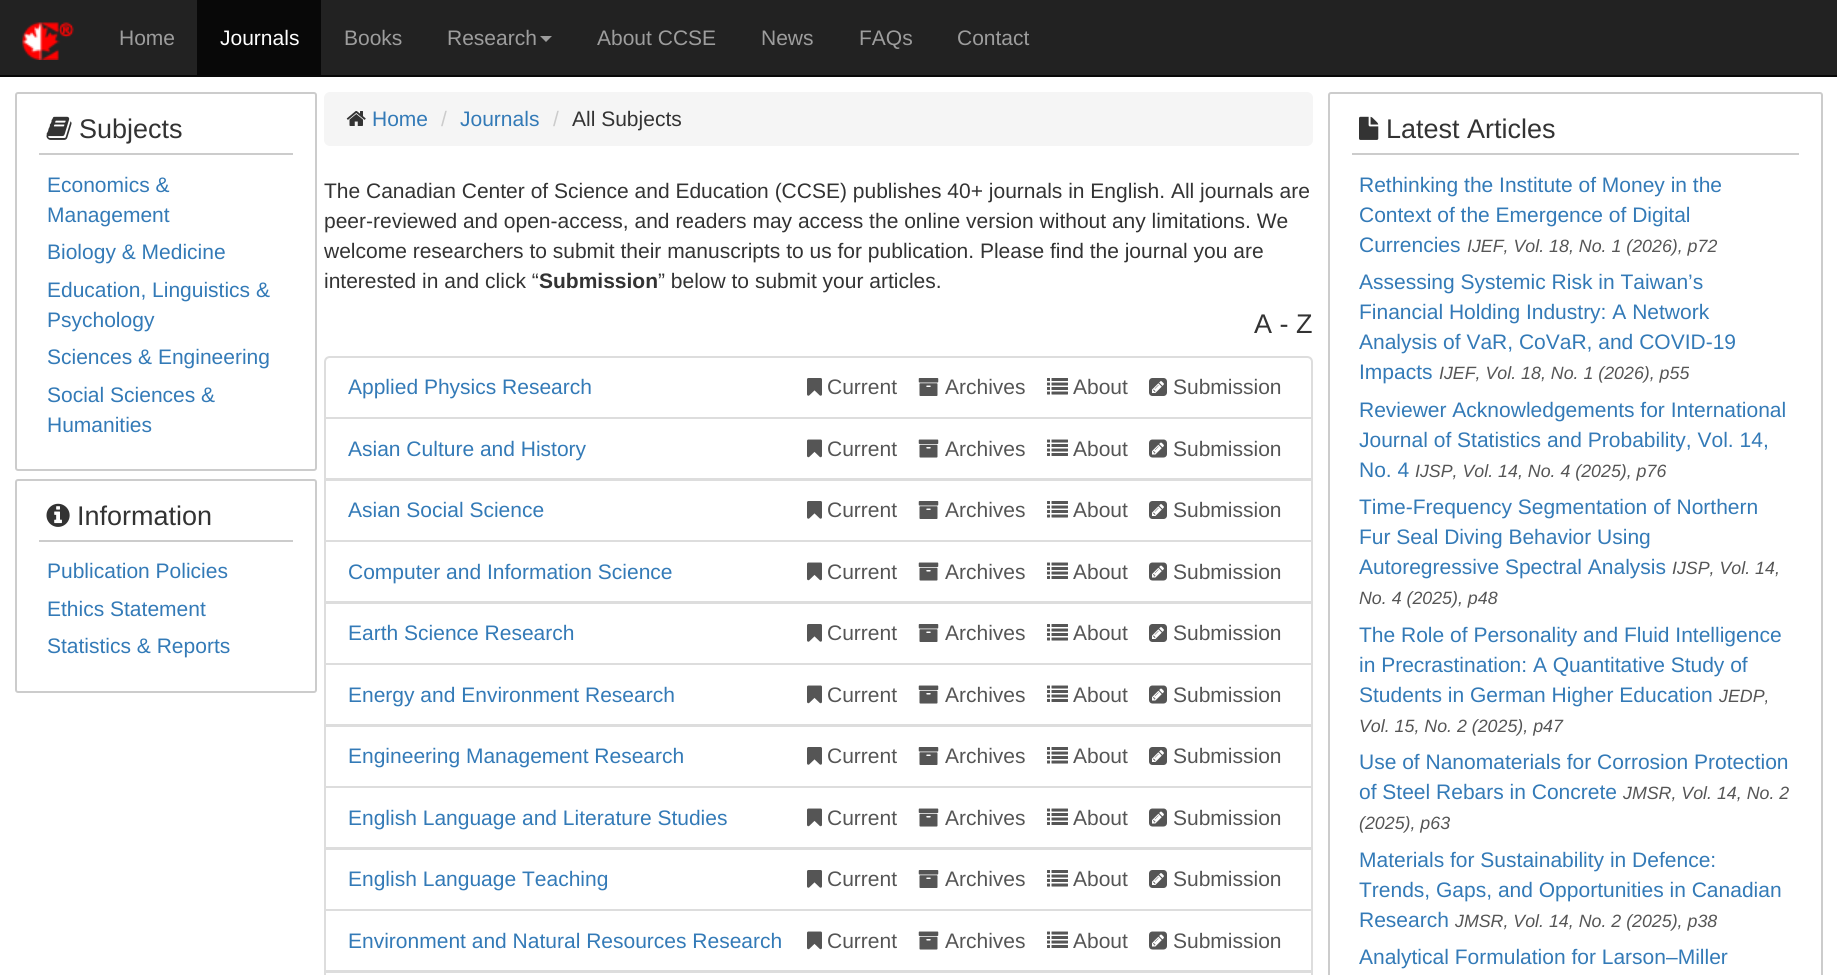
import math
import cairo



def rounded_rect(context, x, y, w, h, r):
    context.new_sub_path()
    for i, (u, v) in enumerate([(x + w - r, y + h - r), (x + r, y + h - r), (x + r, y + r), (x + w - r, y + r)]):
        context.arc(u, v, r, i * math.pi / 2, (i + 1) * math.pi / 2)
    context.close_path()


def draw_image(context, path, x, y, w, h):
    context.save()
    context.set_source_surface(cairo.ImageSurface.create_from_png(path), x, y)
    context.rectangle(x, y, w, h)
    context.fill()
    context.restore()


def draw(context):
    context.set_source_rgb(34 / 255, 34 / 255, 34 / 255)
    context.paint()
    context.set_source_rgb(8 / 255, 8 / 255, 8 / 255)
    context.rectangle(0, 75, 1837, 2)
    context.fill()
    draw_image(context, "images/1.png", 22, 22, 52, 38)
    context.rectangle(197, 0, 124, 75)
    context.fill()
    context.set_source_rgb(157 / 255, 157 / 255, 157 / 255)
    context.new_path()
    context.move_to(540, 36)
    context.line_to(552, 36)
    context.line_to(546, 42)
    context.close_path()
    context.fill()
    context.set_source_rgb(1, 1, 1)
    context.rectangle(0, 77, 1837, 898)
    context.fill()
    rounded_rect(context, 16, 93, 300, 377, 2)
    context.set_source_rgb(204 / 255, 204 / 255, 204 / 255)
    context.stroke()
    context.rectangle(39, 153, 254, 2)
    context.fill()
    draw_image(context, "images/2.png", 46, 116, 26, 24)
    rounded_rect(context, 16, 480, 300, 212, 2)
    context.stroke()
    context.rectangle(39, 540, 254, 2)
    context.fill()
    draw_image(context, "images/3.png", 46, 503, 24, 24)
    context.set_source_rgb(245 / 255, 245 / 255, 245 / 255)
    rounded_rect(context, 324, 92, 989, 54, 6)
    context.fill()
    draw_image(context, "images/4.png", 346, 111, 20, 15)
    context.new_path()
    context.move_to(330, 357)
    context.line_to(1307, 357)
    context.curve_to(1310, 357, 1312, 359, 1312, 362)
    context.line_to(1312, 418)
    context.line_to(325, 418)
    context.line_to(325, 362)
    context.curve_to(325, 359, 327, 357, 330, 357)
    context.close_path()
    context.set_source_rgb(221 / 255, 221 / 255, 221 / 255)
    context.stroke()
    draw_image(context, "images/5.png", 807, 378, 15, 18)
    draw_image(context, "images/6.png", 918, 378, 21, 18)
    draw_image(context, "images/7.png", 1047, 378, 21, 17)
    draw_image(context, "images/8.png", 1149, 378, 18, 18)
    context.rectangle(325, 418, 987, 61)
    context.stroke()
    draw_image(context, "images/9.png", 807, 439, 15, 19)
    draw_image(context, "images/10.png", 918, 439, 21, 19)
    draw_image(context, "images/11.png", 1047, 439, 21, 17)
    draw_image(context, "images/12.png", 1149, 439, 18, 19)
    context.rectangle(325, 480, 987, 61)
    context.stroke()
    draw_image(context, "images/5.png", 807, 501, 15, 18)
    draw_image(context, "images/6.png", 918, 501, 21, 18)
    draw_image(context, "images/7.png", 1047, 501, 21, 17)
    draw_image(context, "images/8.png", 1149, 501, 18, 18)
    context.rectangle(325, 541, 987, 61)
    context.stroke()
    draw_image(context, "images/9.png", 807, 562, 15, 19)
    draw_image(context, "images/10.png", 918, 562, 21, 19)
    draw_image(context, "images/11.png", 1047, 562, 21, 17)
    draw_image(context, "images/12.png", 1149, 562, 18, 19)
    context.rectangle(325, 603, 987, 61)
    context.stroke()
    draw_image(context, "images/5.png", 807, 624, 15, 18)
    draw_image(context, "images/6.png", 918, 624, 21, 18)
    draw_image(context, "images/7.png", 1047, 624, 21, 17)
    draw_image(context, "images/8.png", 1149, 624, 18, 18)
    context.rectangle(325, 664, 987, 61)
    context.stroke()
    draw_image(context, "images/9.png", 807, 685, 15, 19)
    draw_image(context, "images/10.png", 918, 685, 21, 19)
    draw_image(context, "images/11.png", 1047, 685, 21, 17)
    draw_image(context, "images/12.png", 1149, 685, 18, 19)
    context.rectangle(325, 726, 987, 61)
    context.stroke()
    draw_image(context, "images/5.png", 807, 747, 15, 18)
    draw_image(context, "images/6.png", 918, 747, 21, 18)
    draw_image(context, "images/7.png", 1047, 747, 21, 17)
    draw_image(context, "images/8.png", 1149, 747, 18, 18)
    context.rectangle(325, 787, 987, 61)
    context.stroke()
    draw_image(context, "images/9.png", 807, 808, 15, 19)
    draw_image(context, "images/10.png", 918, 808, 21, 19)
    draw_image(context, "images/11.png", 1047, 808, 21, 17)
    draw_image(context, "images/12.png", 1149, 808, 18, 19)
    context.rectangle(325, 849, 987, 61)
    context.stroke()
    draw_image(context, "images/5.png", 807, 870, 15, 18)
    draw_image(context, "images/6.png", 918, 870, 21, 18)
    draw_image(context, "images/7.png", 1047, 870, 21, 17)
    draw_image(context, "images/8.png", 1149, 870, 18, 18)
    context.rectangle(325, 910, 987, 61)
    context.stroke()
    draw_image(context, "images/9.png", 807, 931, 15, 19)
    draw_image(context, "images/10.png", 918, 931, 21, 19)
    draw_image(context, "images/11.png", 1047, 931, 21, 17)
    draw_image(context, "images/12.png", 1149, 931, 18, 19)
    context.rectangle(325, 972, 987, 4)
    context.stroke()
    rounded_rect(context, 1329, 93, 493, 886, 2)
    context.set_source_rgb(204 / 255, 204 / 255, 204 / 255)
    context.stroke()
    context.rectangle(1352, 153, 447, 2)
    context.fill()
    draw_image(context, "images/13.png", 1359, 116, 20, 24)
    context.select_font_face("Liberation Sans")
    context.set_font_size(21)
    context.set_source_rgb(157 / 255, 157 / 255, 157 / 255)
    context.move_to(119, 45)
    context.show_text("Home")
    context.set_source_rgb(1, 1, 1)
    context.move_to(220, 45)
    context.show_text("Journals")
    context.set_source_rgb(157 / 255, 157 / 255, 157 / 255)
    context.move_to(344, 45)
    context.show_text("Books")
    context.move_to(447, 45)
    context.show_text("Research")
    context.move_to(597, 45)
    context.show_text("About CCSE")
    context.move_to(761, 45)
    context.show_text("News")
    context.move_to(859, 45)
    context.show_text("FAQs")
    context.move_to(957, 45)
    context.show_text("Contact")
    context.set_font_size(27)
    context.set_source_rgb(51 / 255, 51 / 255, 51 / 255)
    context.move_to(79, 138)
    context.show_text("Subjects")
    context.set_font_size(21)
    context.set_source_rgb(51 / 255, 122 / 255, 183 / 255)
    context.move_to(47, 192)
    context.show_text("Economics &")
    context.move_to(47, 222)
    context.show_text("Management")
    context.move_to(47, 259)
    context.show_text("Biology & Medicine")
    context.move_to(47, 297)
    context.show_text("Education, Linguistics &")
    context.move_to(47, 327)
    context.show_text("Psychology")
    context.move_to(47, 364)
    context.show_text("Sciences & Engineering")
    context.move_to(47, 402)
    context.show_text("Social Sciences &")
    context.move_to(47, 432)
    context.show_text("Humanities")
    context.set_font_size(27)
    context.set_source_rgb(51 / 255, 51 / 255, 51 / 255)
    context.move_to(77, 525)
    context.show_text("Information")
    context.set_font_size(21)
    context.set_source_rgb(51 / 255, 122 / 255, 183 / 255)
    context.move_to(47, 578)
    context.show_text("Publication Policies")
    context.move_to(47, 616)
    context.show_text("Ethics Statement")
    context.move_to(47, 653)
    context.show_text("Statistics & Reports")
    context.move_to(372, 126)
    context.show_text("Home")
    context.set_source_rgb(204 / 255, 204 / 255, 204 / 255)
    context.move_to(441, 126)
    context.show_text("/")
    context.set_source_rgb(51 / 255, 122 / 255, 183 / 255)
    context.move_to(460, 126)
    context.show_text("Journals")
    context.set_source_rgb(204 / 255, 204 / 255, 204 / 255)
    context.move_to(553, 126)
    context.show_text("/")
    context.set_source_rgb(51 / 255, 51 / 255, 51 / 255)
    context.move_to(572, 126)
    context.show_text("All Subjects")
    context.move_to(324, 198)
    context.show_text("The Canadian Center of Science and Education (CCSE) publishes 40+ journals in English. All journals are")
    context.move_to(324, 228)
    context.show_text("peer-reviewed and open-access, and readers may access the online version without any limitations. We")
    context.move_to(324, 258)
    context.show_text("welcome researchers to submit their manuscripts to us for publication. Please find the journal you are")
    context.move_to(324, 288)
    context.show_text("interested in and click “")
    context.select_font_face("Liberation Sans", cairo.FontSlant.NORMAL, cairo.FontWeight.BOLD)
    context.move_to(539, 288)
    context.show_text("Submission")
    context.select_font_face("Liberation Sans")
    context.move_to(658, 288)
    context.show_text("” below to submit your articles.")
    context.set_font_size(27)
    context.move_to(1254, 333)
    context.show_text("A - Z")
    context.set_font_size(21)
    context.set_source_rgb(51 / 255, 122 / 255, 183 / 255)
    context.move_to(348, 394)
    context.show_text("Applied Physics Research")
    context.set_source_rgb(85 / 255, 85 / 255, 85 / 255)
    context.move_to(827, 394)
    context.show_text("Current")
    context.move_to(945, 394)
    context.show_text("Archives")
    context.move_to(1073, 394)
    context.show_text("About")
    context.move_to(1173, 394)
    context.show_text("Submission")
    context.set_source_rgb(51 / 255, 122 / 255, 183 / 255)
    context.move_to(348, 456)
    context.show_text("Asian Culture and History")
    context.set_source_rgb(85 / 255, 85 / 255, 85 / 255)
    context.move_to(827, 456)
    context.show_text("Current")
    context.move_to(945, 456)
    context.show_text("Archives")
    context.move_to(1073, 456)
    context.show_text("About")
    context.move_to(1173, 456)
    context.show_text("Submission")
    context.set_source_rgb(51 / 255, 122 / 255, 183 / 255)
    context.move_to(348, 517)
    context.show_text("Asian Social Science")
    context.set_source_rgb(85 / 255, 85 / 255, 85 / 255)
    context.move_to(827, 517)
    context.show_text("Current")
    context.move_to(945, 517)
    context.show_text("Archives")
    context.move_to(1073, 517)
    context.show_text("About")
    context.move_to(1173, 517)
    context.show_text("Submission")
    context.set_source_rgb(51 / 255, 122 / 255, 183 / 255)
    context.move_to(348, 579)
    context.show_text("Computer and Information Science")
    context.set_source_rgb(85 / 255, 85 / 255, 85 / 255)
    context.move_to(827, 579)
    context.show_text("Current")
    context.move_to(945, 579)
    context.show_text("Archives")
    context.move_to(1073, 579)
    context.show_text("About")
    context.move_to(1173, 579)
    context.show_text("Submission")
    context.set_source_rgb(51 / 255, 122 / 255, 183 / 255)
    context.move_to(348, 640)
    context.show_text("Earth Science Research")
    context.set_source_rgb(85 / 255, 85 / 255, 85 / 255)
    context.move_to(827, 640)
    context.show_text("Current")
    context.move_to(945, 640)
    context.show_text("Archives")
    context.move_to(1073, 640)
    context.show_text("About")
    context.move_to(1173, 640)
    context.show_text("Submission")
    context.set_source_rgb(51 / 255, 122 / 255, 183 / 255)
    context.move_to(348, 702)
    context.show_text("Energy and Environment Research")
    context.set_source_rgb(85 / 255, 85 / 255, 85 / 255)
    context.move_to(827, 702)
    context.show_text("Current")
    context.move_to(945, 702)
    context.show_text("Archives")
    context.move_to(1073, 702)
    context.show_text("About")
    context.move_to(1173, 702)
    context.show_text("Submission")
    context.set_source_rgb(51 / 255, 122 / 255, 183 / 255)
    context.move_to(348, 763)
    context.show_text("Engineering Management Research")
    context.set_source_rgb(85 / 255, 85 / 255, 85 / 255)
    context.move_to(827, 763)
    context.show_text("Current")
    context.move_to(945, 763)
    context.show_text("Archives")
    context.move_to(1073, 763)
    context.show_text("About")
    context.move_to(1173, 763)
    context.show_text("Submission")
    context.set_source_rgb(51 / 255, 122 / 255, 183 / 255)
    context.move_to(348, 825)
    context.show_text("English Language and Literature Studies")
    context.set_source_rgb(85 / 255, 85 / 255, 85 / 255)
    context.move_to(827, 825)
    context.show_text("Current")
    context.move_to(945, 825)
    context.show_text("Archives")
    context.move_to(1073, 825)
    context.show_text("About")
    context.move_to(1173, 825)
    context.show_text("Submission")
    context.set_source_rgb(51 / 255, 122 / 255, 183 / 255)
    context.move_to(348, 886)
    context.show_text("English Language Teaching")
    context.set_source_rgb(85 / 255, 85 / 255, 85 / 255)
    context.move_to(827, 886)
    context.show_text("Current")
    context.move_to(945, 886)
    context.show_text("Archives")
    context.move_to(1073, 886)
    context.show_text("About")
    context.move_to(1173, 886)
    context.show_text("Submission")
    context.set_source_rgb(51 / 255, 122 / 255, 183 / 255)
    context.move_to(348, 948)
    context.show_text("Environment and Natural Resources Research")
    context.set_source_rgb(85 / 255, 85 / 255, 85 / 255)
    context.move_to(827, 948)
    context.show_text("Current")
    context.move_to(945, 948)
    context.show_text("Archives")
    context.move_to(1073, 948)
    context.show_text("About")
    context.move_to(1173, 948)
    context.show_text("Submission")
    context.set_font_size(27)
    context.set_source_rgb(51 / 255, 51 / 255, 51 / 255)
    context.move_to(1386, 138)
    context.show_text("Latest Articles")
    context.set_font_size(21)
    context.set_source_rgb(51 / 255, 122 / 255, 183 / 255)
    context.move_to(1359, 192)
    context.show_text("Rethinking the Institute of Money in the")
    context.move_to(1359, 222)
    context.show_text("Context of the Emergence of Digital")
    context.move_to(1359, 252)
    context.show_text("Currencies")
    context.select_font_face("Liberation Sans", cairo.FontSlant.ITALIC)
    context.set_font_size(17.8)
    context.set_source_rgb(85 / 255, 85 / 255, 85 / 255)
    context.move_to(1467, 252)
    context.show_text("IJEF, Vol. 18, No. 1 (2026), p72")
    context.select_font_face("Liberation Sans")
    context.set_font_size(21)
    context.set_source_rgb(51 / 255, 122 / 255, 183 / 255)
    context.move_to(1359, 289)
    context.show_text("Assessing Systemic Risk in Taiwan’s")
    context.move_to(1359, 319)
    context.show_text("Financial Holding Industry: A Network")
    context.move_to(1359, 349)
    context.show_text("Analysis of VaR, CoVaR, and COVID-19")
    context.move_to(1359, 379)
    context.show_text("Impacts")
    context.select_font_face("Liberation Sans", cairo.FontSlant.ITALIC)
    context.set_font_size(17.8)
    context.set_source_rgb(85 / 255, 85 / 255, 85 / 255)
    context.move_to(1439, 379)
    context.show_text("IJEF, Vol. 18, No. 1 (2026), p55")
    context.select_font_face("Liberation Sans")
    context.set_font_size(21)
    context.set_source_rgb(51 / 255, 122 / 255, 183 / 255)
    context.move_to(1359, 417)
    context.show_text("Reviewer Acknowledgements for International")
    context.move_to(1359, 447)
    context.show_text("Journal of Statistics and Probability, Vol. 14,")
    context.move_to(1359, 477)
    context.show_text("No. 4")
    context.select_font_face("Liberation Sans", cairo.FontSlant.ITALIC)
    context.set_font_size(17.8)
    context.set_source_rgb(85 / 255, 85 / 255, 85 / 255)
    context.move_to(1415, 477)
    context.show_text("IJSP, Vol. 14, No. 4 (2025), p76")
    context.select_font_face("Liberation Sans")
    context.set_font_size(21)
    context.set_source_rgb(51 / 255, 122 / 255, 183 / 255)
    context.move_to(1359, 514)
    context.show_text("Time-Frequency Segmentation of Northern")
    context.move_to(1359, 544)
    context.show_text("Fur Seal Diving Behavior Using")
    context.move_to(1359, 574)
    context.show_text("Autoregressive Spectral Analysis")
    context.select_font_face("Liberation Sans", cairo.FontSlant.ITALIC)
    context.set_font_size(17.8)
    context.set_source_rgb(85 / 255, 85 / 255, 85 / 255)
    context.move_to(1672, 574)
    context.show_text("IJSP, Vol. 14,")
    context.move_to(1359, 604)
    context.show_text("No. 4 (2025), p48")
    context.select_font_face("Liberation Sans")
    context.set_font_size(21)
    context.set_source_rgb(51 / 255, 122 / 255, 183 / 255)
    context.move_to(1359, 642)
    context.show_text("The Role of Personality and Fluid Intelligence")
    context.move_to(1359, 672)
    context.show_text("in Precrastination: A Quantitative Study of")
    context.move_to(1359, 702)
    context.show_text("Students in German Higher Education")
    context.select_font_face("Liberation Sans", cairo.FontSlant.ITALIC)
    context.set_font_size(17.8)
    context.set_source_rgb(85 / 255, 85 / 255, 85 / 255)
    context.move_to(1719, 702)
    context.show_text("JEDP,")
    context.move_to(1359, 732)
    context.show_text("Vol. 15, No. 2 (2025), p47")
    context.select_font_face("Liberation Sans")
    context.set_font_size(21)
    context.set_source_rgb(51 / 255, 122 / 255, 183 / 255)
    context.move_to(1359, 769)
    context.show_text("Use of Nanomaterials for Corrosion Protection")
    context.move_to(1359, 799)
    context.show_text("of Steel Rebars in Concrete")
    context.select_font_face("Liberation Sans", cairo.FontSlant.ITALIC)
    context.set_font_size(17.8)
    context.set_source_rgb(85 / 255, 85 / 255, 85 / 255)
    context.move_to(1623, 799)
    context.show_text("JMSR, Vol. 14, No. 2")
    context.move_to(1359, 829)
    context.show_text("(2025), p63")
    context.select_font_face("Liberation Sans")
    context.set_font_size(21)
    context.set_source_rgb(51 / 255, 122 / 255, 183 / 255)
    context.move_to(1359, 867)
    context.show_text("Materials for Sustainability in Defence:")
    context.move_to(1359, 897)
    context.show_text("Trends, Gaps, and Opportunities in Canadian")
    context.move_to(1359, 927)
    context.show_text("Research")
    context.select_font_face("Liberation Sans", cairo.FontSlant.ITALIC)
    context.set_font_size(17.8)
    context.set_source_rgb(85 / 255, 85 / 255, 85 / 255)
    context.move_to(1455, 927)
    context.show_text("JMSR, Vol. 14, No. 2 (2025), p38")
    context.select_font_face("Liberation Sans")
    context.set_font_size(21)
    context.set_source_rgb(51 / 255, 122 / 255, 183 / 255)
    context.move_to(1359, 964)
    context.show_text("Analytical Formulation for Larson–Miller")


surface = cairo.ImageSurface(cairo.Format.RGB24, 1837, 975)
context = cairo.Context(surface)
options = cairo.FontOptions()
options.set_hint_metrics(cairo.HintMetrics.OFF)
options.set_hint_style(cairo.HintStyle.NONE)
context.set_font_options(options)
context.set_miter_limit(4)
draw(context)
surface.write_to_png("out.png")
